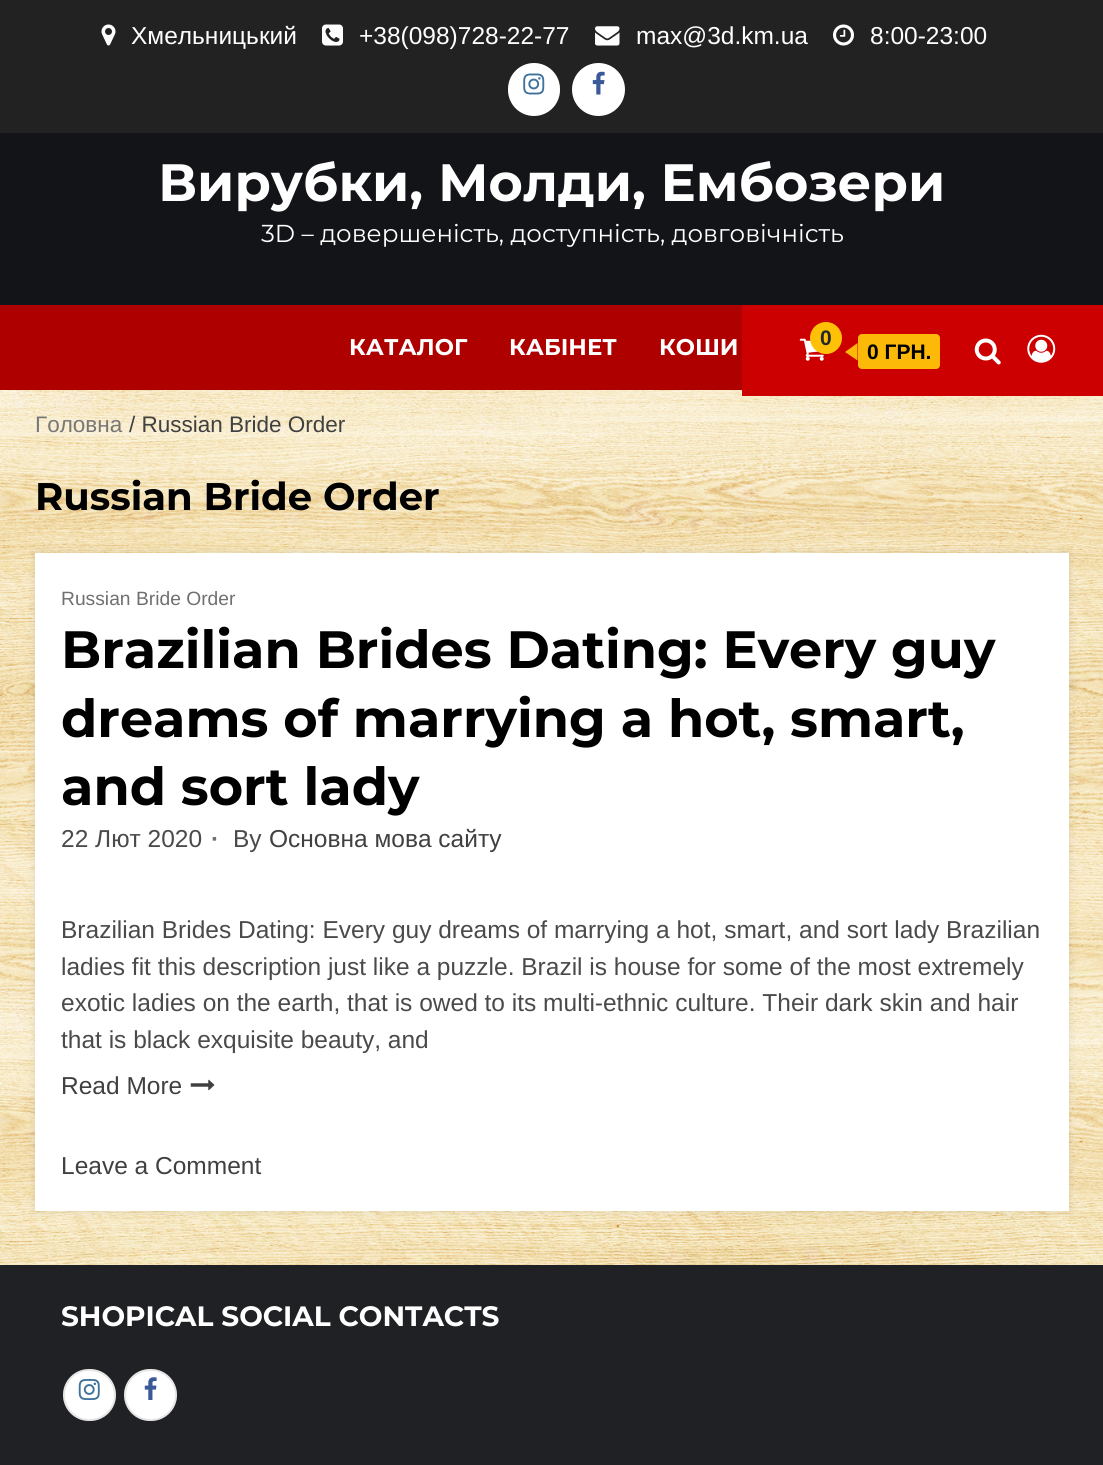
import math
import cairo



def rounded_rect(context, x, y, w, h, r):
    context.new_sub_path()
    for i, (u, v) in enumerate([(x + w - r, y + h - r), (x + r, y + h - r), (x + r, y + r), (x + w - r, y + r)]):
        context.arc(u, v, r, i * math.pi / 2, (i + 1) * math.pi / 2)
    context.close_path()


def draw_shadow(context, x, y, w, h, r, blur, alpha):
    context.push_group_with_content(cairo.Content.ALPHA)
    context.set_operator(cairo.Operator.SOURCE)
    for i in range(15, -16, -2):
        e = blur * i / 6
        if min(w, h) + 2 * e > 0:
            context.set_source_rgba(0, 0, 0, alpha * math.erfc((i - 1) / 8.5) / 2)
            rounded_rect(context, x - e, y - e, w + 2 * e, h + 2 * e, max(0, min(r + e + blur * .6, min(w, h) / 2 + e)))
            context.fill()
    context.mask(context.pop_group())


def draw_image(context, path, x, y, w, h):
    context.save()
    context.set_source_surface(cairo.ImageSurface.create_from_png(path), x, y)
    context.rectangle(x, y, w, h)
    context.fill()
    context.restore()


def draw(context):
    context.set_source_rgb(1, 1, 1)
    context.paint()
    draw_image(context, "images/1.png", 0, 390, 1103, 875)
    context.set_source_rgb(34 / 255, 34 / 255, 34 / 255)
    context.rectangle(0, 0, 1103, 133)
    context.fill()
    draw_image(context, "images/2.png", 101, 24, 15, 22)
    draw_image(context, "images/3.png", 322, 24, 21, 22)
    draw_image(context, "images/4.png", 595, 26, 25, 20)
    draw_image(context, "images/5.png", 833, 24, 21, 22)
    context.set_source_rgb(1, 1, 1)
    rounded_rect(context, 508, 63, 52, 53, 26)
    context.fill()
    draw_image(context, "images/6.png", 523, 73, 22, 22)
    context.arc(598.5, 89.5, 26.5, 0, 2 * math.pi)
    context.fill()
    draw_image(context, "images/7.png", 592, 71, 13, 24)
    context.set_source_rgb(18 / 255, 20 / 255, 23 / 255)
    context.rectangle(0, 133, 1103, 172)
    context.fill()
    context.set_source_rgb(175 / 255, 0, 0)
    context.rectangle(0, 305, 742, 85)
    context.fill()
    context.set_source_rgb(204 / 255, 0, 0)
    context.rectangle(742, 305, 361, 91)
    context.fill()
    draw_image(context, "images/8.png", 799, 338, 25, 23)
    context.set_source_rgb(1, 193 / 255, 7 / 255)
    context.arc(826, 338, 16, 0, 2 * math.pi)
    context.fill()
    context.set_source_rgb(253 / 255, 185 / 255, 7 / 255)
    rounded_rect(context, 858, 334, 82, 35, 4)
    context.fill()
    context.new_path()
    context.move_to(857.5, 343)
    context.line_to(857.5, 360.5)
    context.line_to(845, 352)
    context.close_path()
    context.fill()
    draw_image(context, "images/9.png", 974, 338, 27, 27)
    draw_image(context, "images/10.png", 1027, 334, 29, 29)
    context.set_source_rgb(0, 0, 0)
    draw_shadow(context, 35, 553, 1034, 658, 0, 4.5, 0.1)
    context.set_source_rgb(1, 1, 1)
    context.rectangle(35, 553, 1034, 658)
    context.fill()
    draw_image(context, "images/11.png", 190, 1079, 25, 12)
    context.set_source_rgb(31 / 255, 33 / 255, 37 / 255)
    context.rectangle(0, 1265, 1103, 200)
    context.fill()
    context.set_source_rgb(1, 1, 1)
    rounded_rect(context, 63, 1369, 53, 52, 26)
    context.fill()
    rounded_rect(context, 64, 1370, 51, 50, 25)
    context.set_source_rgba(129 / 255, 129 / 255, 129 / 255, 0.2)
    context.stroke()
    draw_image(context, "images/12.png", 78, 1379, 22, 21)
    context.set_source_rgb(1, 1, 1)
    rounded_rect(context, 124, 1369, 53, 52, 26)
    context.fill()
    rounded_rect(context, 125, 1370, 51, 50, 25)
    context.set_source_rgba(129 / 255, 129 / 255, 129 / 255, 0.2)
    context.stroke()
    draw_image(context, "images/13.png", 144, 1377, 13, 23)
    context.select_font_face("Liberation Sans")
    context.set_font_size(24.5)
    context.set_source_rgb(1, 1, 1)
    context.move_to(131, 44)
    context.show_text("Хмельницький")
    context.move_to(359, 44)
    context.show_text("+38(098)728-22-77")
    context.move_to(636, 44)
    context.show_text("max@3d.km.ua")
    context.move_to(870, 44)
    context.show_text("8:00-23:00")
    context.select_font_face("Montserrat", cairo.FontSlant.NORMAL, cairo.FontWeight.BOLD)
    context.set_font_size(52.5)
    context.move_to(158, 201)
    context.show_text("Вирубки, Молди, Ембозери")
    context.select_font_face("Montserrat")
    context.set_font_size(24.5)
    context.move_to(261, 242)
    context.show_text("3D – довершеність, доступність, довговічність")
    context.select_font_face("Montserrat", cairo.FontSlant.NORMAL, cairo.FontWeight.BOLD)
    context.set_font_size(22.75)
    context.move_to(349, 355)
    context.show_text("КАТАЛОГ")
    context.move_to(509, 355)
    context.show_text("КАБІНЕТ")
    context.move_to(659, 355)
    context.show_text("КОШИ")
    context.select_font_face("Liberation Sans", cairo.FontSlant.NORMAL, cairo.FontWeight.BOLD)
    context.set_font_size(21)
    context.set_source_rgb(35 / 255, 40 / 255, 45 / 255)
    context.move_to(820, 345)
    context.show_text("0")
    context.set_source_rgb(0, 0, 0)
    context.move_to(867, 359)
    context.show_text("0 ГРН.")
    context.select_font_face("Liberation Sans")
    context.set_font_size(22.5)
    context.set_source_rgb(119 / 255, 119 / 255, 119 / 255)
    context.move_to(35, 432)
    context.show_text("Головна")
    context.set_source_rgb(64 / 255, 64 / 255, 64 / 255)
    context.move_to(129, 432)
    context.show_text("/ Russian Bride Order")
    context.select_font_face("Montserrat", cairo.FontSlant.NORMAL, cairo.FontWeight.BOLD)
    context.set_font_size(38.5)
    context.set_source_rgb(0, 0, 0)
    context.move_to(35, 510)
    context.show_text("Russian Bride Order")
    context.select_font_face("Liberation Sans")
    context.set_font_size(19.25)
    context.set_source_rgb(112 / 255, 112 / 255, 112 / 255)
    context.move_to(61, 605)
    context.show_text("Russian Bride Order")
    context.select_font_face("Montserrat", cairo.FontSlant.NORMAL, cairo.FontWeight.BOLD)
    context.set_font_size(52.5)
    context.set_source_rgb(0, 0, 0)
    context.move_to(61, 668)
    context.show_text("Brazilian Brides Dating: Every guy")
    context.move_to(61, 737)
    context.show_text("dreams of marrying a hot, smart,")
    context.move_to(61, 805)
    context.show_text("and sort lady")
    context.select_font_face("Liberation Sans")
    context.set_font_size(24.5)
    context.set_source_rgb(74 / 255, 74 / 255, 74 / 255)
    context.move_to(61, 847)
    context.show_text("22 Лют 2020")
    context.select_font_face("Liberation Sans", cairo.FontSlant.NORMAL, cairo.FontWeight.BOLD)
    context.set_source_rgb(112 / 255, 112 / 255, 112 / 255)
    context.move_to(211, 847)
    context.show_text("∙")
    context.select_font_face("Liberation Sans")
    context.set_source_rgb(74 / 255, 74 / 255, 74 / 255)
    context.move_to(233, 847)
    context.show_text("By")
    context.set_source_rgb(64 / 255, 64 / 255, 64 / 255)
    context.move_to(269, 847)
    context.show_text("Основна мова сайту")
    context.set_source_rgb(74 / 255, 74 / 255, 74 / 255)
    context.move_to(61, 938)
    context.show_text("Brazilian Brides Dating: Every guy dreams of marrying a hot, smart, and sort lady Brazilian")
    context.move_to(61, 975)
    context.show_text("ladies fit this description just like a puzzle. Brazil is house for some of the most extremely")
    context.move_to(61, 1011)
    context.show_text("exotic ladies on the earth, that is owed to its multi-ethnic culture. Their dark skin and hair")
    context.move_to(61, 1048)
    context.show_text("that is black exquisite beauty, and")
    context.set_source_rgb(64 / 255, 64 / 255, 64 / 255)
    context.move_to(61, 1094)
    context.show_text("Read More")
    context.move_to(61, 1174)
    context.show_text("Leave a Comment")
    context.select_font_face("Montserrat", cairo.FontSlant.NORMAL, cairo.FontWeight.BOLD)
    context.set_font_size(28)
    context.set_source_rgb(1, 1, 1)
    context.move_to(61, 1326)
    context.show_text("SHOPICAL SOCIAL CONTACTS")


surface = cairo.ImageSurface(cairo.Format.RGB24, 1103, 1465)
context = cairo.Context(surface)
options = cairo.FontOptions()
options.set_hint_metrics(cairo.HintMetrics.OFF)
options.set_hint_style(cairo.HintStyle.NONE)
context.set_font_options(options)
context.set_miter_limit(4)
draw(context)
surface.write_to_png("out.png")
